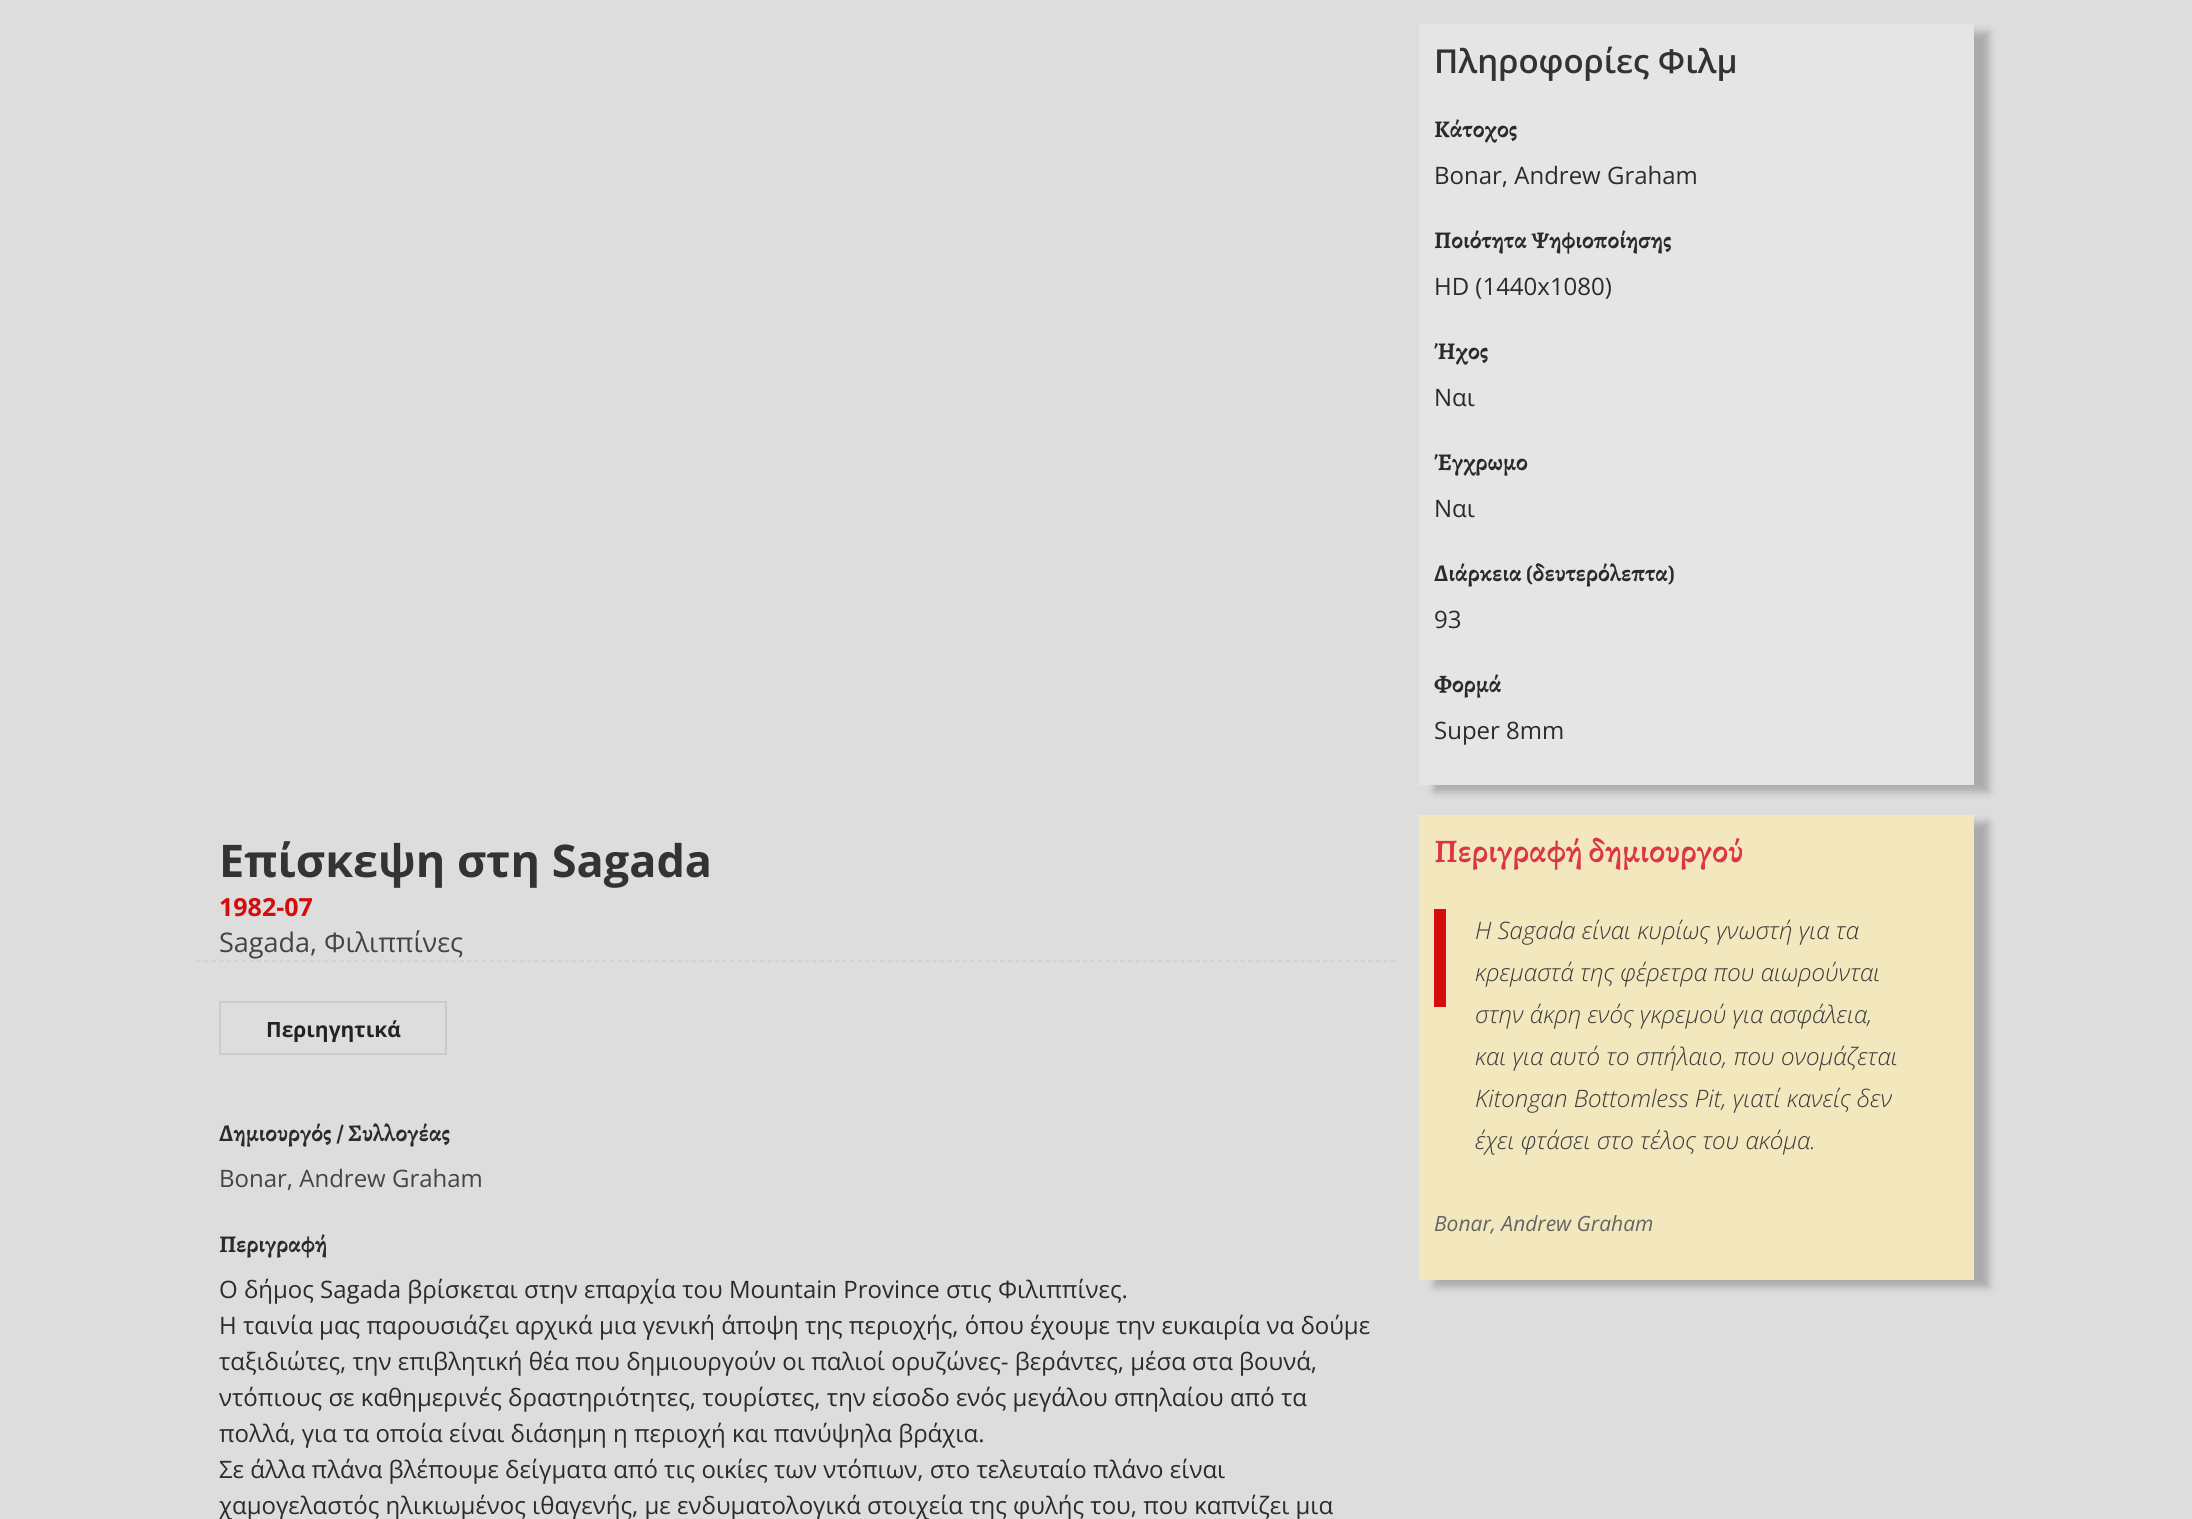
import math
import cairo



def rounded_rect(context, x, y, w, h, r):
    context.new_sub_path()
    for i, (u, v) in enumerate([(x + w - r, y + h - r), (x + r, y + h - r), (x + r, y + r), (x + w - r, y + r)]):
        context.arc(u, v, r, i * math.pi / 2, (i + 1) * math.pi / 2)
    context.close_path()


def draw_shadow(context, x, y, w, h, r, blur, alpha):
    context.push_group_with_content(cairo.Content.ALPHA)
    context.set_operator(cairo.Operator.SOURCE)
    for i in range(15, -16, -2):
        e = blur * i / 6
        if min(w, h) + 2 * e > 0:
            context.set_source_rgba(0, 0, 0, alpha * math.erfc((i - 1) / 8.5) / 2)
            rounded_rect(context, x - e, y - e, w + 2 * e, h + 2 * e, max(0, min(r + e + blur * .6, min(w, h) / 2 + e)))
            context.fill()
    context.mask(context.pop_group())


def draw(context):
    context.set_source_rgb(221 / 255, 221 / 255, 221 / 255)
    context.paint()
    context.new_path()
    context.move_to(196.5, 961)
    context.line_to(1396.5, 961)
    context.set_source_rgb(206 / 255, 206 / 255, 206 / 255)
    context.set_line_width(1.5)
    context.set_dash([4.5, 3.01])
    context.stroke()
    context.rectangle(220, 1002, 226, 52)
    context.set_source_rgb(203 / 255, 203 / 255, 203 / 255)
    context.set_line_width(2)
    context.set_dash([])
    context.stroke()
    context.set_source_rgb(170 / 255, 170 / 255, 170 / 255)
    draw_shadow(context, 1434, 32, 555, 760, 0, 4, 1)
    context.set_source_rgb(229 / 255, 229 / 255, 229 / 255)
    context.rectangle(1419, 24, 555, 761)
    context.fill()
    context.set_source_rgb(170 / 255, 170 / 255, 170 / 255)
    draw_shadow(context, 1434, 822, 555, 465, 0, 4, 1)
    context.set_source_rgb(243 / 255, 231 / 255, 189 / 255)
    context.rectangle(1419, 815, 555, 465)
    context.fill()
    context.set_source_rgb(213 / 255, 12 / 255, 13 / 255)
    context.rectangle(1434, 909, 12, 98)
    context.fill()
    context.select_font_face("Open Sans", cairo.FontSlant.NORMAL, cairo.FontWeight.BOLD)
    context.set_font_size(45)
    context.set_source_rgb(51 / 255, 51 / 255, 51 / 255)
    context.move_to(219, 877)
    context.show_text("Επίσκεψη στη Sagada")
    context.set_font_size(25)
    context.set_source_rgb(213 / 255, 12 / 255, 13 / 255)
    context.move_to(219, 916)
    context.show_text("1982-07")
    context.select_font_face("Open Sans")
    context.set_font_size(27)
    context.set_source_rgb(68 / 255, 68 / 255, 68 / 255)
    context.move_to(219, 952)
    context.show_text("Sagada, Φιλιππίνες")
    context.select_font_face("Open Sans", cairo.FontSlant.NORMAL, cairo.FontWeight.BOLD)
    context.set_font_size(21)
    context.set_source_rgb(35 / 255, 35 / 255, 35 / 255)
    context.move_to(266, 1037)
    context.show_text("Περιηγητικά")
    context.select_font_face("Alegreya", cairo.FontSlant.NORMAL, cairo.FontWeight.BOLD)
    context.set_font_size(24)
    context.set_source_rgb(43 / 255, 43 / 255, 43 / 255)
    context.move_to(219, 1141)
    context.show_text("Δημιουργός / Συλλογέας")
    context.select_font_face("Open Sans")
    context.set_source_rgb(68 / 255, 68 / 255, 68 / 255)
    context.move_to(219, 1187)
    context.show_text("Bonar, Andrew Graham")
    context.select_font_face("Alegreya", cairo.FontSlant.NORMAL, cairo.FontWeight.BOLD)
    context.set_source_rgb(43 / 255, 43 / 255, 43 / 255)
    context.move_to(219, 1252)
    context.show_text("Περιγραφή")
    context.select_font_face("Open Sans")
    context.move_to(219, 1298)
    context.show_text("Ο δήμος Sagada βρίσκεται στην επαρχία του Mountain Province στις Φιλιππίνες.")
    context.move_to(219, 1334)
    context.show_text("Η ταινία μας παρουσιάζει αρχικά μια γενική άποψη της περιοχής, όπου έχουμε την ευκαιρία να δούμε")
    context.move_to(219, 1370)
    context.show_text("ταξιδιώτες, την επιβλητική θέα που δημιουργούν οι παλιοί ορυζώνες- βεράντες, μέσα στα βουνά,")
    context.move_to(219, 1406)
    context.show_text("ντόπιους σε καθημερινές δραστηριότητες, τουρίστες, την είσοδο ενός μεγάλου σπηλαίου από τα")
    context.move_to(219, 1442)
    context.show_text("πολλά, για τα οποία είναι διάσημη η περιοχή και πανύψηλα βράχια.")
    context.move_to(219, 1478)
    context.show_text("Σε άλλα πλάνα βλέπουμε δείγματα από τις οικίες των ντόπιων, στο τελευταίο πλάνο είναι")
    context.move_to(219, 1514)
    context.show_text("χαμογελαστός ηλικιωμένος ιθαγενής, με ενδυματολογικά στοιχεία της φυλής του, που καπνίζει μια")
    context.select_font_face("Open Sans SemiBold")
    context.set_font_size(33)
    context.set_source_rgb(51 / 255, 51 / 255, 51 / 255)
    context.move_to(1434, 73)
    context.show_text("Πληροφορίες Φιλμ")
    context.select_font_face("Alegreya", cairo.FontSlant.NORMAL, cairo.FontWeight.BOLD)
    context.set_font_size(24)
    context.set_source_rgb(43 / 255, 43 / 255, 43 / 255)
    context.move_to(1434, 137)
    context.show_text("Κάτοχος")
    context.select_font_face("Open Sans")
    context.move_to(1434, 184)
    context.show_text("Bonar, Andrew Graham")
    context.select_font_face("Alegreya", cairo.FontSlant.NORMAL, cairo.FontWeight.BOLD)
    context.move_to(1434, 248)
    context.show_text("Ποιότητα Ψηφιοποίησης")
    context.select_font_face("Open Sans")
    context.move_to(1434, 295)
    context.show_text("HD (1440x1080)")
    context.select_font_face("Alegreya", cairo.FontSlant.NORMAL, cairo.FontWeight.BOLD)
    context.move_to(1434, 359)
    context.show_text("Ήχος")
    context.select_font_face("Open Sans")
    context.move_to(1434, 406)
    context.show_text("Ναι")
    context.select_font_face("Alegreya", cairo.FontSlant.NORMAL, cairo.FontWeight.BOLD)
    context.move_to(1434, 470)
    context.show_text("Έγχρωμο")
    context.select_font_face("Open Sans")
    context.move_to(1434, 517)
    context.show_text("Ναι")
    context.select_font_face("Alegreya", cairo.FontSlant.NORMAL, cairo.FontWeight.BOLD)
    context.move_to(1434, 581)
    context.show_text("Διάρκεια (δευτερόλεπτα)")
    context.select_font_face("Open Sans")
    context.move_to(1434, 628)
    context.show_text("93")
    context.select_font_face("Alegreya", cairo.FontSlant.NORMAL, cairo.FontWeight.BOLD)
    context.move_to(1434, 692)
    context.show_text("Φορμά")
    context.select_font_face("Open Sans")
    context.move_to(1434, 739)
    context.show_text("Super 8mm")
    context.select_font_face("Alegreya SemiBold")
    context.set_font_size(33)
    context.set_source_rgb(220 / 255, 53 / 255, 69 / 255)
    context.move_to(1434, 862)
    context.show_text("Περιγραφή δημιουργού")
    context.select_font_face("Open Sans Light", cairo.FontSlant.ITALIC)
    context.set_font_size(24)
    context.set_source_rgb(58 / 255, 58 / 255, 58 / 255)
    context.move_to(1475, 939)
    context.show_text("Η Sagada είναι κυρίως γνωστή για τα")
    context.move_to(1475, 981)
    context.show_text("κρεμαστά της φέρετρα που αιωρούνται")
    context.move_to(1475, 1023)
    context.show_text("στην άκρη ενός γκρεμού για ασφάλεια,")
    context.move_to(1475, 1065)
    context.show_text("και για αυτό το σπήλαιο, που ονομάζεται")
    context.move_to(1475, 1107)
    context.show_text("Kitongan Bottomless Pit, γιατί κανείς δεν")
    context.move_to(1475, 1149)
    context.show_text("έχει φτάσει στο τέλος του ακόμα.")
    context.select_font_face("Open Sans", cairo.FontSlant.ITALIC)
    context.set_font_size(21)
    context.set_source_rgb(101 / 255, 101 / 255, 101 / 255)
    context.move_to(1434, 1231)
    context.show_text("Bonar, Andrew Graham")


surface = cairo.ImageSurface(cairo.Format.RGB24, 2192, 1519)
context = cairo.Context(surface)
options = cairo.FontOptions()
options.set_hint_metrics(cairo.HintMetrics.OFF)
options.set_hint_style(cairo.HintStyle.NONE)
context.set_font_options(options)
context.set_miter_limit(4)
draw(context)
surface.write_to_png("out.png")
